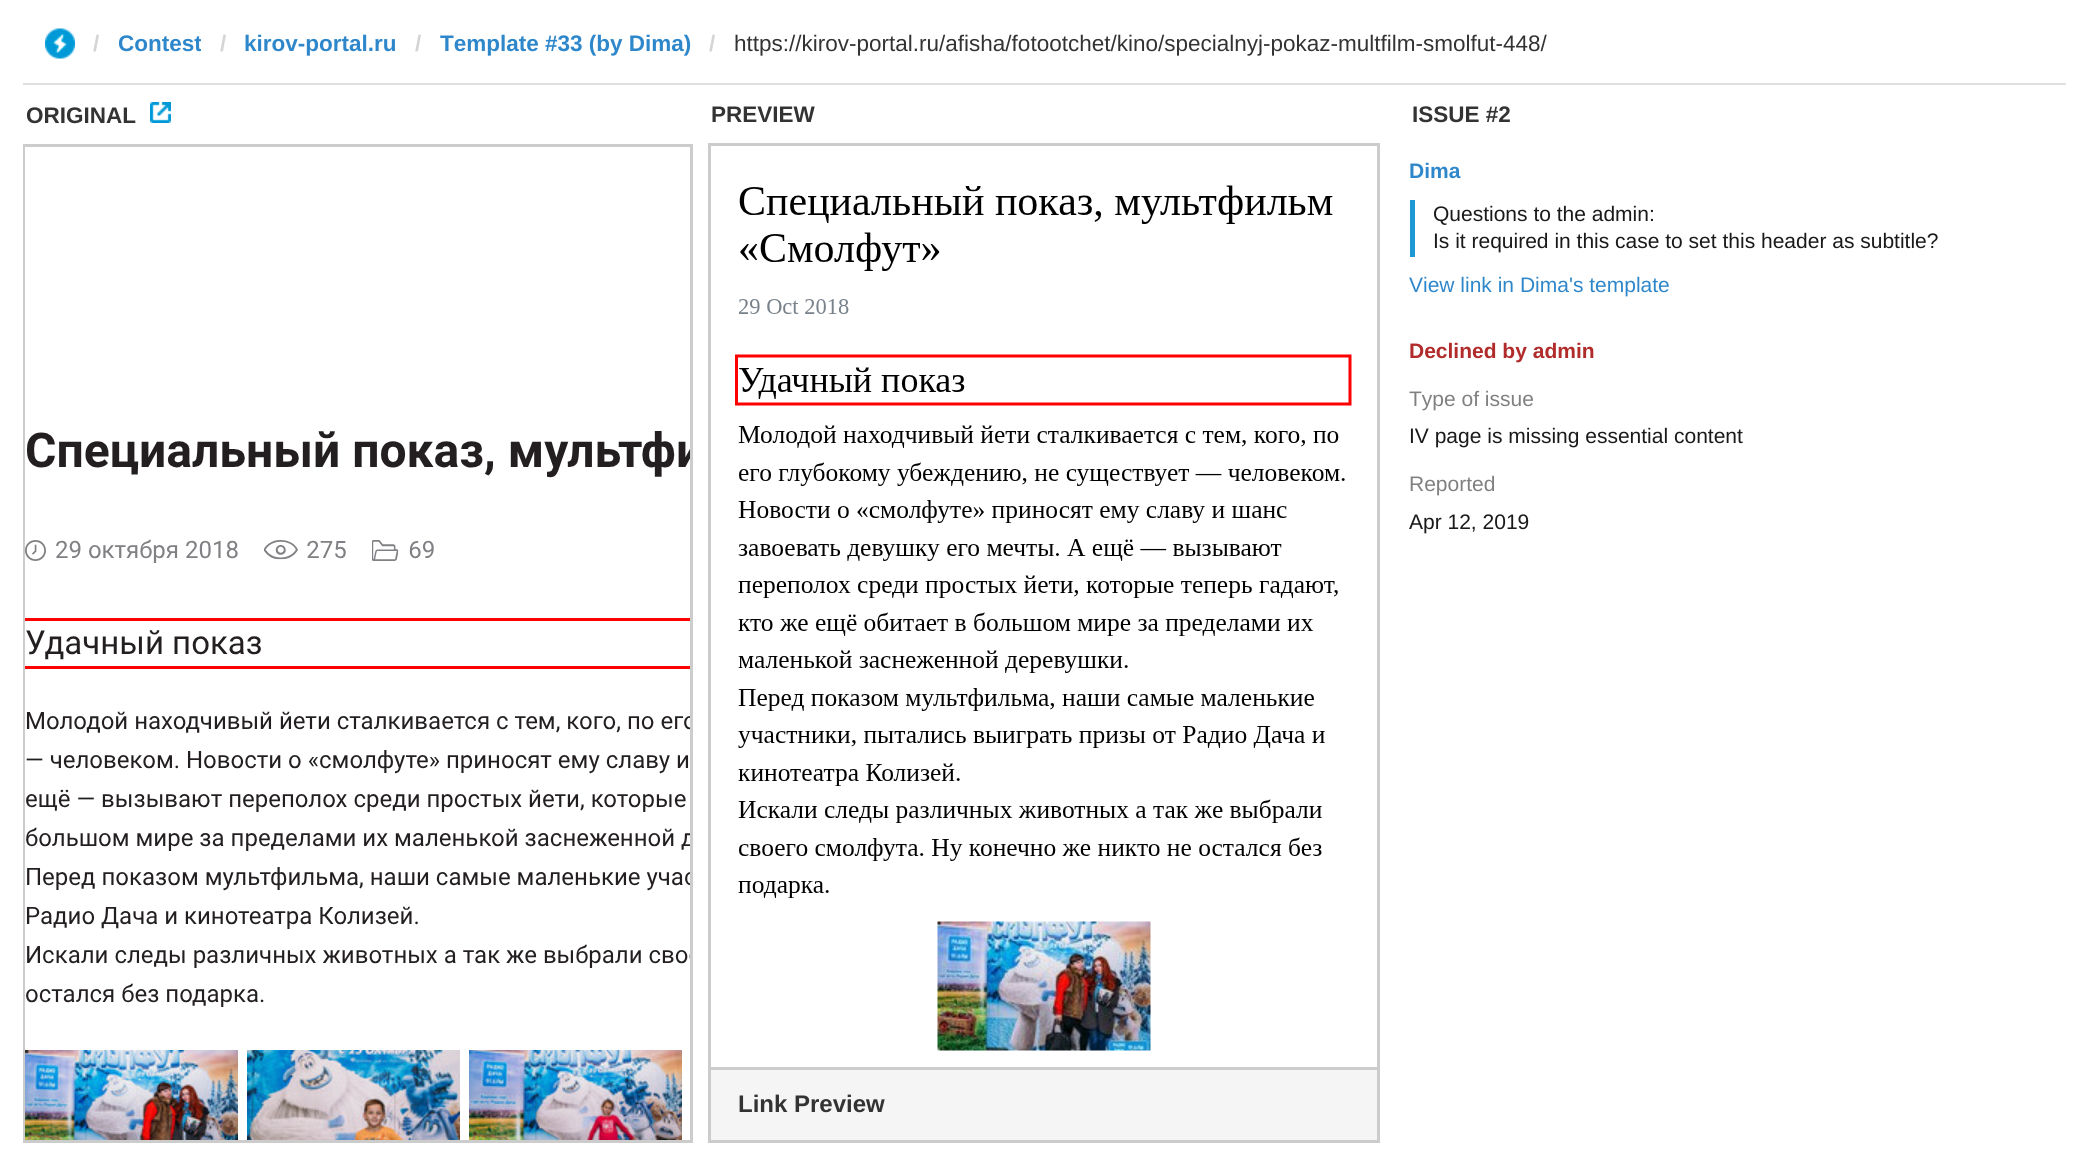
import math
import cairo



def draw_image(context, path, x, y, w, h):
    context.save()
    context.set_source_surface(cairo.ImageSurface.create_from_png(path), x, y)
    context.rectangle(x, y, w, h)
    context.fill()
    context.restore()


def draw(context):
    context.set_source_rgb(1, 1, 1)
    context.paint()
    context.set_source_rgb(224 / 255, 224 / 255, 224 / 255)
    context.rectangle(23, 83, 2043, 2)
    context.fill()
    draw_image(context, "images/1.png", 45, 28, 30, 31)
    draw_image(context, "images/2.png", 150, 102, 21, 21)
    context.rectangle(24.5, 145.5, 667, 996)
    context.set_source_rgb(204 / 255, 204 / 255, 204 / 255)
    context.set_line_width(3)
    context.stroke()
    draw_image(context, "images/3.png", 25, 147, 665, 993)
    context.rectangle(709.5, 144.5, 669, 997)
    context.stroke()
    draw_image(context, "images/4.png", 735, 185, 617, 866)
    context.rectangle(711, 1067, 666, 3)
    context.fill()
    context.set_source_rgb(245 / 255, 245 / 255, 245 / 255)
    context.rectangle(711, 1070, 666, 70)
    context.fill()
    context.set_source_rgb(30 / 255, 152 / 255, 212 / 255)
    context.rectangle(1410, 200, 5, 57)
    context.fill()
    context.select_font_face("Liberation Sans", cairo.FontSlant.NORMAL, cairo.FontWeight.BOLD)
    context.set_font_size(22.5)
    context.set_source_rgb(212 / 255, 212 / 255, 212 / 255)
    context.move_to(93, 51)
    context.show_text("/")
    context.save()
    context.rectangle(119, 29, 82, 30)
    context.clip()
    context.set_source_rgb(46 / 255, 135 / 255, 202 / 255)
    context.move_to(118, 51)
    context.show_text("Contest")
    context.restore()
    context.move_to(220, 51)
    context.show_text("/")
    context.set_source_rgb(46 / 255, 135 / 255, 202 / 255)
    context.move_to(244, 51)
    context.show_text("kirov-portal.ru")
    context.set_source_rgb(212 / 255, 212 / 255, 212 / 255)
    context.move_to(415, 51)
    context.show_text("/")
    context.set_source_rgb(46 / 255, 135 / 255, 202 / 255)
    context.move_to(440, 51)
    context.show_text("Template #33 (by Dima)")
    context.set_source_rgb(212 / 255, 212 / 255, 212 / 255)
    context.move_to(709, 51)
    context.show_text("/")
    context.select_font_face("Liberation Sans")
    context.set_source_rgb(51 / 255, 51 / 255, 51 / 255)
    context.move_to(734, 51)
    context.show_text("https://kirov-portal.ru/afisha/fotootchet/kino/specialnyj-pokaz-multfilm-smolfut-448/")
    context.select_font_face("Liberation Sans", cairo.FontSlant.NORMAL, cairo.FontWeight.BOLD)
    context.move_to(26, 123)
    context.show_text("ORIGINAL")
    context.move_to(711, 122)
    context.show_text("PREVIEW")
    context.set_font_size(24)
    context.move_to(738, 1112)
    context.show_text("Link Preview")
    context.set_font_size(22.5)
    context.move_to(1412, 122)
    context.show_text("ISSUE #2")
    context.set_font_size(21)
    context.set_source_rgb(46 / 255, 135 / 255, 202 / 255)
    context.move_to(1409, 178)
    context.show_text("Dima")
    context.select_font_face("Liberation Sans")
    context.set_source_rgb(26 / 255, 26 / 255, 26 / 255)
    context.move_to(1433, 221)
    context.show_text("Questions to the admin:")
    context.move_to(1433, 248)
    context.show_text("Is it required in this case to set this header as subtitle?")
    context.set_source_rgb(46 / 255, 135 / 255, 202 / 255)
    context.move_to(1409, 292)
    context.show_text("View link in Dima's template")
    context.select_font_face("Liberation Sans", cairo.FontSlant.NORMAL, cairo.FontWeight.BOLD)
    context.set_source_rgb(177 / 255, 43 / 255, 43 / 255)
    context.move_to(1409, 358)
    context.show_text("Declined by admin")
    context.select_font_face("Liberation Sans")
    context.set_source_rgb(128 / 255, 128 / 255, 128 / 255)
    context.move_to(1409, 406)
    context.show_text("Type of issue")
    context.set_source_rgb(26 / 255, 26 / 255, 26 / 255)
    context.move_to(1409, 443)
    context.show_text("IV page is missing essential content")
    context.set_source_rgb(128 / 255, 128 / 255, 128 / 255)
    context.move_to(1409, 491)
    context.show_text("Reported")
    context.set_source_rgb(26 / 255, 26 / 255, 26 / 255)
    context.move_to(1409, 529)
    context.show_text("Apr 12, 2019")


surface = cairo.ImageSurface(cairo.Format.RGB24, 2088, 1158)
context = cairo.Context(surface)
options = cairo.FontOptions()
options.set_hint_metrics(cairo.HintMetrics.OFF)
options.set_hint_style(cairo.HintStyle.NONE)
context.set_font_options(options)
context.set_miter_limit(4)
draw(context)
surface.write_to_png("out.png")
